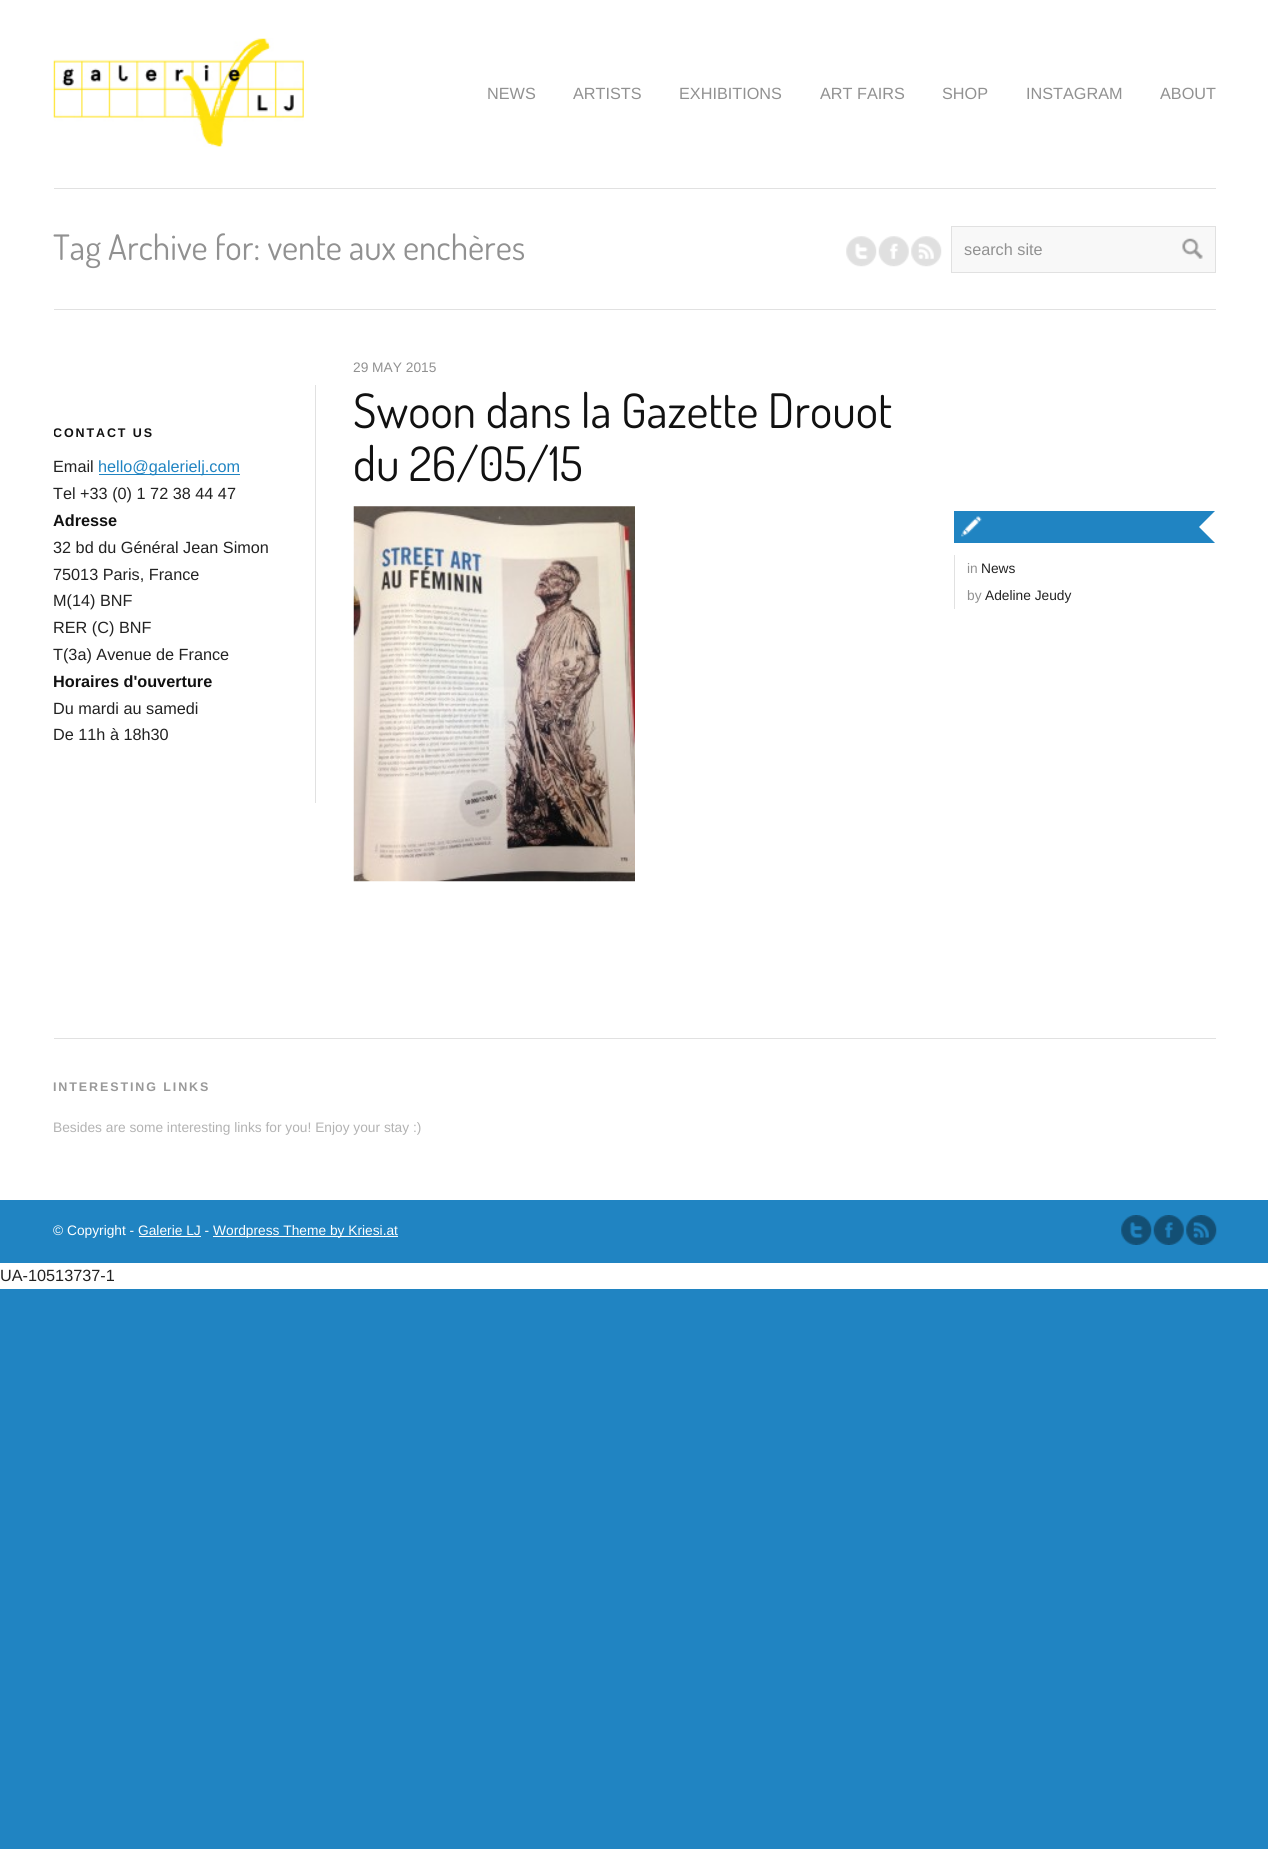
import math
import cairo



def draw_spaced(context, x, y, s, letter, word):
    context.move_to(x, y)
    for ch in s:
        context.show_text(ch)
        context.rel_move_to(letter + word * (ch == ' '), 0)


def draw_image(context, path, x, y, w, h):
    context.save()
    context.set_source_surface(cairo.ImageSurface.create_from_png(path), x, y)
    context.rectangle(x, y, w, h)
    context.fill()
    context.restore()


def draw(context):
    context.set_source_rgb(32 / 255, 132 / 255, 194 / 255)
    context.paint()
    context.set_source_rgb(1, 1, 1)
    context.rectangle(0, 0, 1268, 1289)
    context.fill()
    context.set_source_rgb(225 / 255, 225 / 255, 225 / 255)
    context.rectangle(54, 188, 1162, 1)
    context.fill()
    draw_image(context, "images/1.png", 53, 38, 251, 109)
    context.rectangle(54, 309, 1162, 1)
    context.fill()
    draw_image(context, "images/2.png", 846, 236, 31, 31)
    draw_image(context, "images/3.png", 878, 236, 31, 31)
    draw_image(context, "images/4.png", 911, 236, 31, 31)
    context.set_source_rgb(248 / 255, 248 / 255, 248 / 255)
    context.rectangle(951.5, 226.5, 264, 46)
    context.fill_preserve()
    context.set_source_rgb(225 / 255, 225 / 255, 225 / 255)
    context.set_line_width(1)
    context.stroke()
    draw_image(context, "images/5.png", 1182, 238, 21, 21)
    context.rectangle(315, 385, 1, 418)
    context.fill()
    context.set_source_rgb(32 / 255, 132 / 255, 194 / 255)
    context.rectangle(99, 474, 141, 1)
    context.fill()
    draw_image(context, "images/6.png", 353, 506, 282, 376)
    context.rectangle(954, 511, 261, 32)
    context.fill()
    draw_image(context, "images/7.png", 961, 516, 21, 21)
    context.save()
    context.rectangle(954, 511, 262, 32)
    context.clip()
    context.set_source_rgb(1, 1, 1)
    context.new_path()
    context.move_to(1221, 505)
    context.line_to(1243, 527)
    context.line_to(1221, 549)
    context.line_to(1199, 527)
    context.close_path()
    context.fill()
    context.restore()
    context.set_source_rgb(225 / 255, 225 / 255, 225 / 255)
    context.rectangle(954, 555, 1, 54)
    context.fill()
    context.rectangle(54, 1038, 1162, 1)
    context.fill()
    context.set_source_rgb(32 / 255, 132 / 255, 194 / 255)
    context.rectangle(0, 1200, 1268, 63)
    context.fill()
    context.set_source_rgb(1, 1, 1)
    context.rectangle(139, 1236, 62, 1)
    context.fill()
    context.rectangle(213, 1236, 185, 1)
    context.fill()
    draw_image(context, "images/8.png", 1121, 1215, 31, 30)
    draw_image(context, "images/9.png", 1153, 1215, 31, 30)
    draw_image(context, "images/10.png", 1186, 1215, 31, 30)
    context.select_font_face("Liberation Sans")
    context.set_font_size(16.25)
    context.set_source_rgb(145 / 255, 145 / 255, 145 / 255)
    context.move_to(487, 99)
    context.show_text("NEWS")
    context.move_to(573, 99)
    context.show_text("ARTISTS")
    context.move_to(679, 99)
    context.show_text("EXHIBITIONS")
    context.move_to(820, 99)
    context.show_text("ART FAIRS")
    context.move_to(942, 99)
    context.show_text("SHOP")
    context.move_to(1026, 99)
    context.show_text("INSTAGRAM")
    context.move_to(1160, 99)
    context.show_text("ABOUT")
    context.select_font_face("Dosis")
    context.set_font_size(35)
    context.move_to(53, 260)
    context.show_text("Tag Archive for: vente aux enchères")
    context.select_font_face("Liberation Sans")
    context.set_font_size(16.25)
    context.move_to(964, 255)
    context.show_text("search site")
    context.save()
    context.rectangle(54, 385, 225, 418)
    context.clip()
    context.select_font_face("Liberation Sans", cairo.FontSlant.NORMAL, cairo.FontWeight.BOLD)
    context.set_font_size(12.5)
    context.set_source_rgb(17 / 255, 17 / 255, 17 / 255)
    draw_spaced(context, 53, 437, "CONTACT US", 1.9, 0)
    context.restore()
    context.set_source_rgb(34 / 255, 34 / 255, 34 / 255)
    context.move_to(53, 472)
    context.show_text("Email")
    context.set_source_rgb(32 / 255, 132 / 255, 194 / 255)
    context.move_to(98, 472)
    context.show_text("hello@galerielj.com")
    context.set_source_rgb(34 / 255, 34 / 255, 34 / 255)
    context.move_to(53, 499)
    context.show_text("Tel +33 (0) 1 72 38 44 47")
    context.select_font_face("Liberation Sans", cairo.FontSlant.NORMAL, cairo.FontWeight.BOLD)
    context.set_source_rgb(17 / 255, 17 / 255, 17 / 255)
    context.move_to(53, 526)
    context.show_text("Adresse")
    context.select_font_face("Liberation Sans")
    context.set_source_rgb(34 / 255, 34 / 255, 34 / 255)
    context.move_to(53, 553)
    context.show_text("32 bd du Général Jean Simon")
    context.move_to(53, 580)
    context.show_text("75013 Paris, France")
    context.move_to(53, 606)
    context.show_text("M(14) BNF")
    context.move_to(53, 633)
    context.show_text("RER (C) BNF")
    context.move_to(53, 660)
    context.show_text("T(3a) Avenue de France")
    context.select_font_face("Liberation Sans", cairo.FontSlant.NORMAL, cairo.FontWeight.BOLD)
    context.set_source_rgb(17 / 255, 17 / 255, 17 / 255)
    context.move_to(53, 687)
    context.show_text("Horaires d'ouverture")
    context.select_font_face("Liberation Sans")
    context.set_source_rgb(34 / 255, 34 / 255, 34 / 255)
    context.move_to(53, 714)
    context.show_text("Du mardi au samedi")
    context.move_to(53, 740)
    context.show_text("De 11h à 18h30")
    context.set_font_size(13.75)
    context.set_source_rgb(145 / 255, 145 / 255, 145 / 255)
    context.move_to(353, 372)
    context.show_text("29 MAY 2015")
    context.select_font_face("Dosis")
    context.set_font_size(47.5)
    context.set_source_rgb(17 / 255, 17 / 255, 17 / 255)
    context.move_to(353, 428)
    context.show_text("Swoon dans la Gazette Drouot")
    context.move_to(353, 481)
    context.show_text("du 26/05/15")
    context.select_font_face("Liberation Sans")
    context.set_font_size(13.75)
    context.set_source_rgb(145 / 255, 145 / 255, 145 / 255)
    context.move_to(967, 573)
    context.show_text("in")
    context.set_source_rgb(34 / 255, 34 / 255, 34 / 255)
    context.move_to(981, 573)
    context.show_text("News")
    context.set_source_rgb(145 / 255, 145 / 255, 145 / 255)
    context.move_to(967, 600)
    context.show_text("by")
    context.set_source_rgb(34 / 255, 34 / 255, 34 / 255)
    context.move_to(985, 600)
    context.show_text("Adeline Jeudy")
    context.select_font_face("Liberation Sans", cairo.FontSlant.NORMAL, cairo.FontWeight.BOLD)
    context.set_font_size(12.5)
    context.set_source_rgb(153 / 255, 153 / 255, 153 / 255)
    draw_spaced(context, 53, 1091, "INTERESTING LINKS", 1.9, 0)
    context.select_font_face("Liberation Sans")
    context.set_font_size(13.75)
    context.set_source_rgb(179 / 255, 179 / 255, 179 / 255)
    context.move_to(53, 1132)
    context.show_text("Besides are some interesting links for you! Enjoy your stay :)")
    context.set_source_rgb(1, 1, 1)
    context.move_to(53, 1235)
    context.show_text("© Copyright - Galerie LJ -")
    context.move_to(213, 1235)
    context.show_text("Wordpress Theme by Kriesi.at")
    context.set_font_size(16.25)
    context.set_source_rgb(34 / 255, 34 / 255, 34 / 255)
    context.move_to(0, 1281)
    context.show_text("UA-10513737-1")


surface = cairo.ImageSurface(cairo.Format.RGB24, 1268, 1849)
context = cairo.Context(surface)
options = cairo.FontOptions()
options.set_hint_metrics(cairo.HintMetrics.OFF)
options.set_hint_style(cairo.HintStyle.NONE)
context.set_font_options(options)
context.set_miter_limit(4)
draw(context)
surface.write_to_png("out.png")
